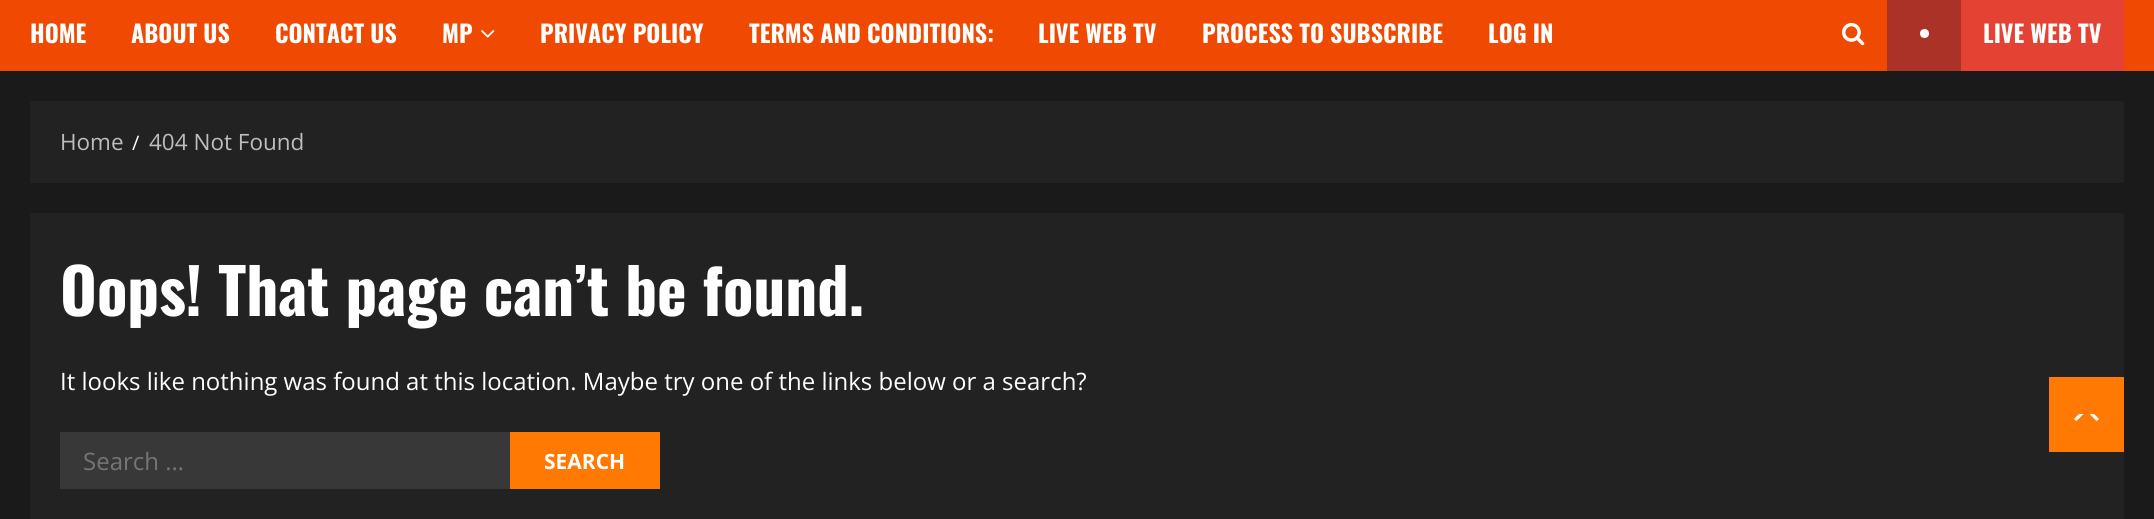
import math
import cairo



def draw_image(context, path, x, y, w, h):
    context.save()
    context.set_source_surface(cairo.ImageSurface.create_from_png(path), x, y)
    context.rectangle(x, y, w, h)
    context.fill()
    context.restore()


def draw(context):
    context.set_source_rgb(26 / 255, 26 / 255, 26 / 255)
    context.paint()
    context.set_source_rgb(240 / 255, 73 / 255, 1 / 255)
    context.rectangle(0, 0, 2154, 71)
    context.fill()
    draw_image(context, "images/1.png", 481, 30, 14, 8)
    draw_image(context, "images/2.png", 1842, 22, 23, 24)
    context.set_source_rgb(228 / 255, 66 / 255, 51 / 255)
    context.rectangle(1961, 0, 163, 71)
    context.fill()
    context.set_source_rgb(171 / 255, 50 / 255, 38 / 255)
    context.rectangle(1887, 0, 74, 71)
    context.fill()
    context.set_source_rgb(1, 1, 1)
    context.arc(1924.5, 33.5, 4.5, 0, 2 * math.pi)
    context.fill()
    context.set_source_rgb(34 / 255, 34 / 255, 34 / 255)
    context.rectangle(30, 101, 2094, 82)
    context.fill()
    context.rectangle(30, 213, 2094, 306)
    context.fill()
    context.set_source_rgb(56 / 255, 56 / 255, 56 / 255)
    context.rectangle(60, 432, 450, 57)
    context.fill()
    context.set_source_rgb(1, 121 / 255, 3 / 255)
    context.rectangle(510, 432, 150, 57)
    context.fill()
    context.rectangle(2049, 377, 75, 75)
    context.fill()
    context.set_source_rgb(1, 1, 1)
    context.new_path()
    context.move_to(2079, 421.5)
    context.line_to(2094, 421.5)
    context.curve_to(2096, 421.5, 2098, 420.5, 2099, 419)
    context.line_to(2094, 414)
    context.line_to(2079, 414)
    context.line_to(2074, 419)
    context.curve_to(2075, 420.5, 2077, 421.5, 2079, 421.5)
    context.close_path()
    context.fill()
    context.set_source_rgb(1, 121 / 255, 3 / 255)
    context.new_path()
    context.move_to(2101.5, 426)
    context.line_to(2071.5, 426)
    context.line_to(2086.5, 411)
    context.close_path()
    context.fill()
    context.select_font_face("Oswald", cairo.FontSlant.NORMAL, cairo.FontWeight.BOLD)
    context.set_font_size(24)
    context.set_source_rgb(1, 1, 1)
    context.move_to(30, 43)
    context.show_text("HOME")
    context.move_to(131, 43)
    context.show_text("ABOUT US")
    context.move_to(275, 43)
    context.show_text("CONTACT US")
    context.move_to(442, 43)
    context.show_text("MP")
    context.move_to(540, 43)
    context.show_text("PRIVACY POLICY")
    context.move_to(749, 43)
    context.show_text("TERMS AND CONDITIONS:")
    context.move_to(1038, 43)
    context.show_text("LIVE WEB TV")
    context.move_to(1202, 43)
    context.show_text("PROCESS TO SUBSCRIBE")
    context.move_to(1488, 43)
    context.show_text("LOG IN")
    context.move_to(1983, 43)
    context.show_text("LIVE WEB TV")
    context.select_font_face("Open Sans")
    context.set_font_size(22.5)
    context.set_source_rgb(189 / 255, 189 / 255, 189 / 255)
    context.move_to(60, 150)
    context.show_text("Home")
    context.set_font_size(20)
    context.set_source_rgb(1, 1, 1)
    context.move_to(132, 150)
    context.show_text("/")
    context.set_font_size(22.5)
    context.set_source_rgb(189 / 255, 189 / 255, 189 / 255)
    context.move_to(149, 150)
    context.show_text("404 Not Found")
    context.select_font_face("Oswald", cairo.FontSlant.NORMAL, cairo.FontWeight.BOLD)
    context.set_font_size(63)
    context.set_source_rgb(1, 1, 1)
    context.move_to(60, 316)
    context.show_text("Oops! That page can’t be found.")
    context.select_font_face("Open Sans")
    context.set_font_size(24)
    context.move_to(60, 390)
    context.show_text("It looks like nothing was found at this location. Maybe try one of the links below or a search?")
    context.set_source_rgb(117 / 255, 117 / 255, 117 / 255)
    context.move_to(83, 470)
    context.show_text("Search …")
    context.select_font_face("Open Sans", cairo.FontSlant.NORMAL, cairo.FontWeight.BOLD)
    context.set_font_size(21)
    context.set_source_rgb(1, 1, 1)
    context.move_to(544, 469)
    context.show_text("SEARCH")


surface = cairo.ImageSurface(cairo.Format.RGB24, 2154, 519)
context = cairo.Context(surface)
options = cairo.FontOptions()
options.set_hint_metrics(cairo.HintMetrics.OFF)
options.set_hint_style(cairo.HintStyle.NONE)
context.set_font_options(options)
context.set_miter_limit(4)
draw(context)
surface.write_to_png("out.png")
